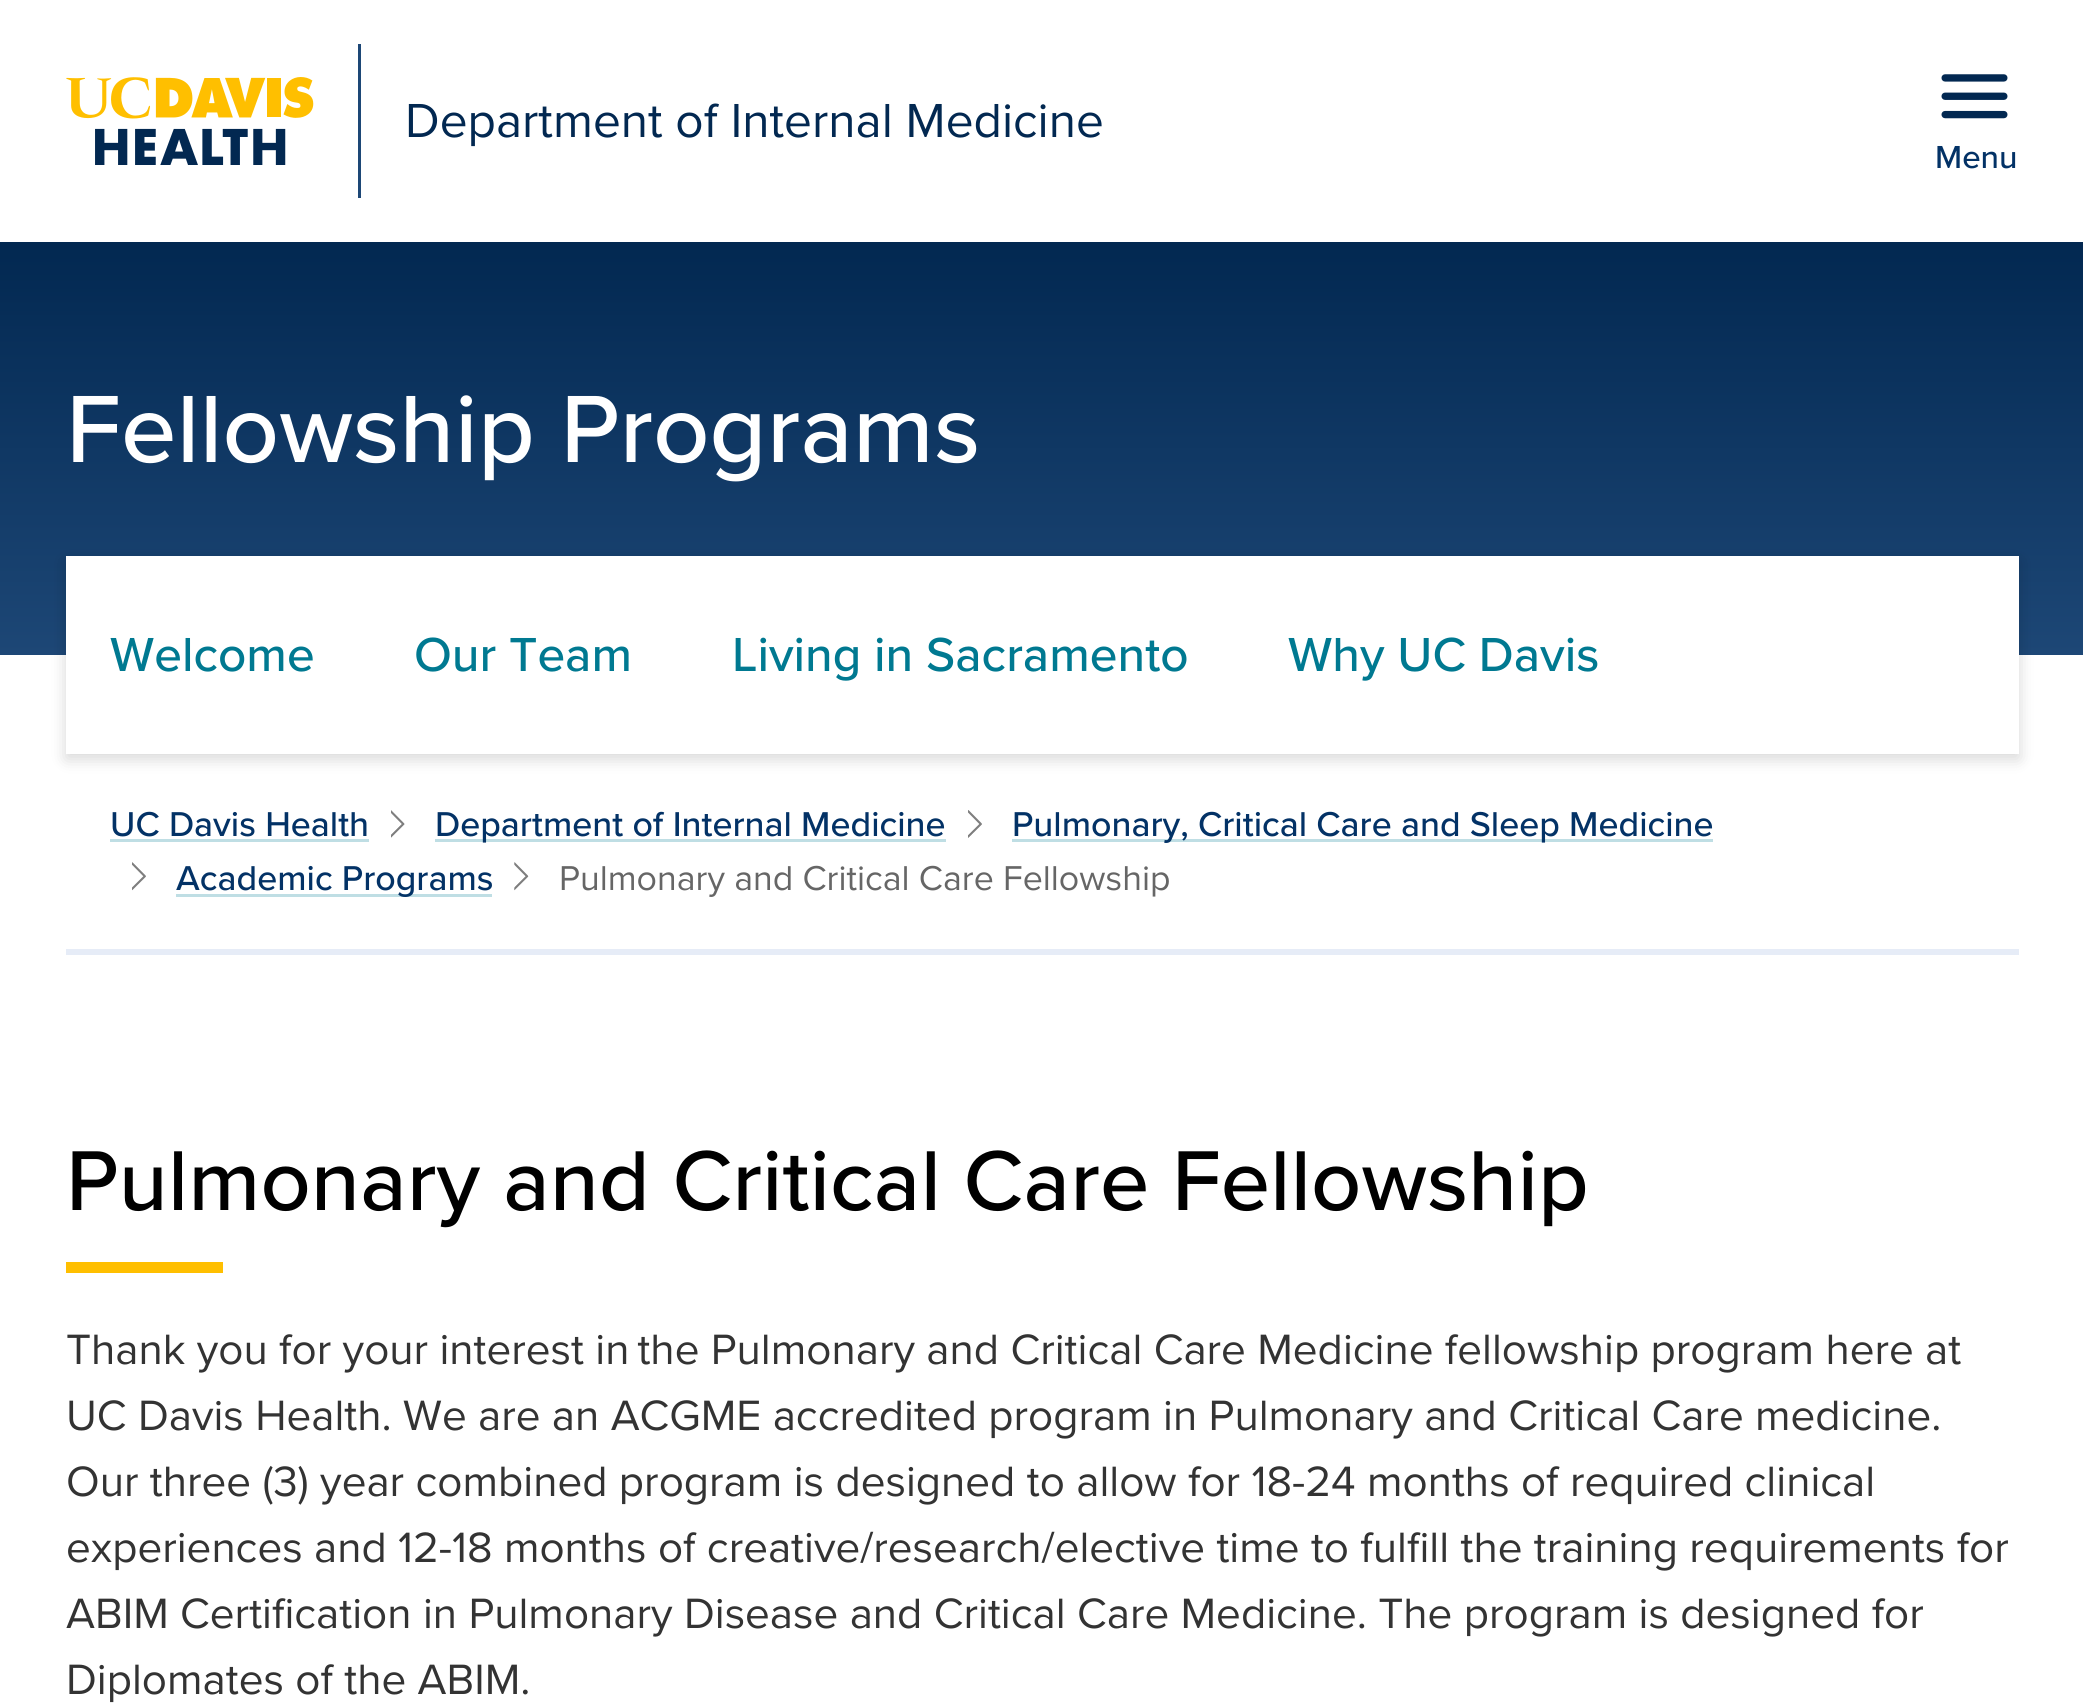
import math
import cairo



def rounded_rect(context, x, y, w, h, r):
    context.new_sub_path()
    for i, (u, v) in enumerate([(x + w - r, y + h - r), (x + r, y + h - r), (x + r, y + r), (x + w - r, y + r)]):
        context.arc(u, v, r, i * math.pi / 2, (i + 1) * math.pi / 2)
    context.close_path()


def draw_shadow(context, x, y, w, h, r, blur, alpha):
    context.push_group_with_content(cairo.Content.ALPHA)
    context.set_operator(cairo.Operator.SOURCE)
    for i in range(15, -16, -2):
        e = blur * i / 6
        if min(w, h) + 2 * e > 0:
            context.set_source_rgba(0, 0, 0, alpha * math.erfc((i - 1) / 8.5) / 2)
            rounded_rect(context, x - e, y - e, w + 2 * e, h + 2 * e, max(0, min(r + e + blur * .6, min(w, h) / 2 + e)))
            context.fill()
    context.mask(context.pop_group())


def draw_image(context, path, x, y, w, h):
    context.save()
    context.set_source_surface(cairo.ImageSurface.create_from_png(path), x, y)
    context.rectangle(x, y, w, h)
    context.fill()
    context.restore()


def draw(context):
    context.set_source_rgb(1, 1, 1)
    context.paint()
    draw_image(context, "images/1.png", 66, 77, 248, 88)
    context.set_source_rgb(29 / 255, 71 / 255, 118 / 255)
    context.rectangle(358, 44, 3, 154)
    context.fill()
    draw_image(context, "images/2.png", 1941, 74, 67, 45)
    gradient = cairo.LinearGradient(1042, 242, 1042, 655)
    gradient.add_color_stop_rgba(0, 2 / 255, 40 / 255, 81 / 255, 1)
    gradient.add_color_stop_rgba(1, 29 / 255, 71 / 255, 118 / 255, 1)
    context.set_source(gradient)
    context.rectangle(0, 242, 2083, 413)
    context.fill()
    context.set_source_rgb(0, 0, 0)
    draw_shadow(context, 66, 561, 1953, 198, 0, 8, 0.16)
    context.set_source_rgb(1, 1, 1)
    context.rectangle(66, 556, 1953, 198)
    context.fill()
    context.set_source_rgb(230 / 255, 236 / 255, 247 / 255)
    context.rectangle(66, 949, 1953, 6)
    context.fill()
    context.set_source_rgb(191 / 255, 222 / 255, 228 / 255)
    context.rectangle(110, 839, 259, 3)
    context.fill()
    draw_image(context, "images/3.png", 391, 810, 14, 28)
    context.rectangle(435, 839, 511, 3)
    context.fill()
    draw_image(context, "images/4.png", 968, 810, 14, 28)
    context.rectangle(1012, 839, 701, 3)
    context.fill()
    draw_image(context, "images/5.png", 132, 862, 14, 29)
    context.rectangle(176, 894, 316, 3)
    context.fill()
    draw_image(context, "images/6.png", 514, 862, 15, 29)
    context.set_source_rgb(1, 191 / 255, 0)
    context.rectangle(66, 1262, 157, 11)
    context.fill()
    context.select_font_face("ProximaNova")
    context.set_font_size(49.5)
    context.set_source_rgb(2 / 255, 40 / 255, 81 / 255)
    context.move_to(405, 137)
    context.show_text("Department of Internal Medicine")
    context.select_font_face("Proxima Nova Medium")
    context.set_font_size(33)
    context.set_source_rgb(3 / 255, 50 / 255, 102 / 255)
    context.move_to(1935, 168)
    context.show_text("Menu")
    context.set_font_size(99)
    context.set_source_rgb(1, 1, 1)
    context.move_to(66, 462)
    context.show_text("Fellowship Programs")
    context.set_font_size(49.5)
    context.set_source_rgb(0, 121 / 255, 145 / 255)
    context.move_to(110, 671)
    context.show_text("Welcome")
    context.move_to(414, 671)
    context.show_text("Our Team")
    context.move_to(732, 671)
    context.show_text("Living in Sacramento")
    context.move_to(1288, 671)
    context.show_text("Why UC Davis")
    context.set_font_size(35.75)
    context.set_source_rgb(3 / 255, 50 / 255, 102 / 255)
    context.move_to(110, 836)
    context.show_text("UC Davis Health")
    context.move_to(435, 836)
    context.show_text("Department of Internal Medicine")
    context.move_to(1012, 836)
    context.show_text("Pulmonary, Critical Care and Sleep Medicine")
    context.move_to(176, 890)
    context.show_text("Academic Programs")
    context.select_font_face("ProximaNova")
    context.set_source_rgb(102 / 255, 102 / 255, 102 / 255)
    context.move_to(559, 890)
    context.show_text("Pulmonary and Critical Care Fellowship")
    context.select_font_face("Proxima Nova Medium")
    context.set_font_size(88)
    context.set_source_rgb(0, 0, 0)
    context.move_to(66, 1210)
    context.show_text("Pulmonary and Critical Care Fellowship")
    context.select_font_face("ProximaNova")
    context.set_font_size(44)
    context.set_source_rgb(51 / 255, 51 / 255, 51 / 255)
    context.move_to(66, 1364)
    context.show_text("Thank you for your interest in the Pulmonary and Critical Care Medicine fellowship program here at")
    context.move_to(66, 1430)
    context.show_text("UC Davis Health. We are an ACGME accredited program in Pulmonary and Critical Care medicine.")
    context.move_to(66, 1496)
    context.show_text("Our three (3) year combined program is designed to allow for 18-24 months of required clinical")
    context.move_to(66, 1562)
    context.show_text("experiences and 12-18 months of creative/research/elective time to fulfill the training requirements for")
    context.move_to(66, 1628)
    context.show_text("ABIM Certification in Pulmonary Disease and Critical Care Medicine. The program is designed for")
    context.move_to(66, 1694)
    context.show_text("Diplomates of the ABIM.")


surface = cairo.ImageSurface(cairo.Format.RGB24, 2083, 1703)
context = cairo.Context(surface)
options = cairo.FontOptions()
options.set_hint_metrics(cairo.HintMetrics.OFF)
options.set_hint_style(cairo.HintStyle.NONE)
context.set_font_options(options)
context.set_miter_limit(4)
draw(context)
surface.write_to_png("out.png")
